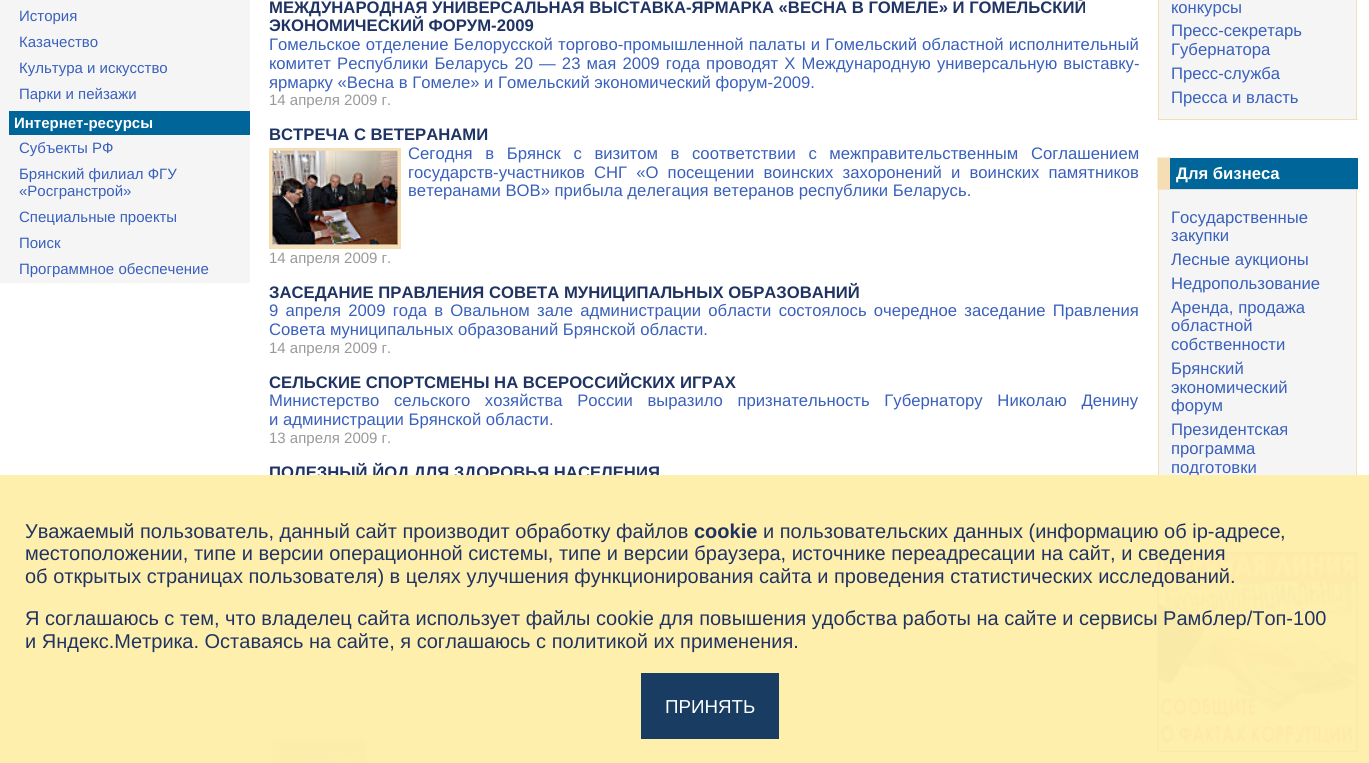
import math
import cairo



def draw_spaced(context, x, y, s, letter, word):
    context.move_to(x, y)
    for ch in s:
        context.show_text(ch)
        context.rel_move_to(letter + word * (ch == ' '), 0)


def draw_image(context, path, x, y, w, h):
    context.save()
    context.set_source_surface(cairo.ImageSurface.create_from_png(path), x, y)
    context.rectangle(x, y, w, h)
    context.fill()
    context.restore()


def draw(context):
    context.set_source_rgb(1, 1, 1)
    context.paint()
    context.set_source_rgb(245 / 255, 245 / 255, 245 / 255)
    context.rectangle(0, 0, 250, 283)
    context.fill()
    context.set_source_rgb(0, 102 / 255, 153 / 255)
    context.rectangle(9, 111, 241, 24)
    context.fill()
    context.rectangle(271, 150, 128, 97)
    context.set_source_rgb(245 / 255, 222 / 255, 179 / 255)
    context.set_line_width(4)
    context.stroke()
    draw_image(context, "images/1.png", 272, 150, 126, 95)
    context.rectangle(271, 738, 97, 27)
    context.stroke()
    draw_image(context, "images/2.png", 272, 739, 95, 24)
    context.set_source_rgb(245 / 255, 245 / 255, 245 / 255)
    context.rectangle(1159, 0, 197, 119)
    context.fill()
    context.set_source_rgb(245 / 255, 222 / 255, 179 / 255)
    context.rectangle(1356, 0, 1, 120)
    context.fill()
    context.rectangle(1158, 119, 200, 1)
    context.fill()
    context.rectangle(1158, 0, 1, 120)
    context.fill()
    context.set_source_rgb(0, 102 / 255, 153 / 255)
    context.rectangle(1170, 158, 188, 31)
    context.fill()
    context.set_source_rgb(222 / 255, 222 / 255, 222 / 255)
    context.new_path()
    context.move_to(1358, 190)
    context.line_to(1158, 190)
    context.line_to(1170, 189)
    context.line_to(1358, 189)
    context.close_path()
    context.fill()
    context.set_source_rgb(245 / 255, 222 / 255, 179 / 255)
    context.new_path()
    context.move_to(1157.5, 190)
    context.line_to(1157.5, 157.5)
    context.line_to(1170, 157.5)
    context.line_to(1170, 189)
    context.close_path()
    context.fill()
    context.set_source_rgb(245 / 255, 245 / 255, 245 / 255)
    context.rectangle(1159, 190, 197, 336)
    context.fill()
    context.set_source_rgb(245 / 255, 222 / 255, 179 / 255)
    context.rectangle(1356, 190, 1, 338)
    context.fill()
    context.rectangle(1158, 526, 200, 1)
    context.fill()
    context.rectangle(1158, 190, 1, 338)
    context.fill()
    draw_image(context, "images/3.png", 1157, 552, 201, 200)
    context.select_font_face("Liberation Sans")
    context.set_font_size(15)
    context.set_source_rgb(57 / 255, 96 / 255, 188 / 255)
    context.move_to(19, 21)
    context.show_text("История")
    context.move_to(19, 47)
    context.show_text("Казачество")
    context.move_to(19, 73)
    context.show_text("Культура и искусство")
    context.move_to(19, 99)
    context.show_text("Парки и пейзажи")
    context.select_font_face("Liberation Sans", cairo.FontSlant.NORMAL, cairo.FontWeight.BOLD)
    context.set_source_rgb(1, 1, 1)
    context.move_to(14, 128)
    context.show_text("Интернет-ресурсы")
    context.select_font_face("Liberation Sans")
    context.set_source_rgb(57 / 255, 96 / 255, 188 / 255)
    context.move_to(19, 153)
    context.show_text("Субъекты РФ")
    context.move_to(19, 179)
    context.show_text("Брянский филиал ФГУ")
    context.move_to(19, 196)
    context.show_text("«Росгранстрой»")
    context.move_to(19, 222)
    context.show_text("Специальные проекты")
    context.move_to(19, 248)
    context.show_text("Поиск")
    context.move_to(19, 274)
    context.show_text("Программное обеспечение")
    context.select_font_face("Liberation Sans", cairo.FontSlant.NORMAL, cairo.FontWeight.BOLD)
    context.set_font_size(16.67)
    context.set_source_rgb(32 / 255, 52 / 255, 99 / 255)
    context.move_to(269, 13)
    context.show_text("МЕЖДУНАРОДНАЯ УНИВЕРСАЛЬНАЯ ВЫСТАВКА-ЯРМАРКА «ВЕСНА В ГОМЕЛЕ» И ГОМЕЛЬСКИЙ")
    context.move_to(269, 31)
    context.show_text("ЭКОНОМИЧЕСКИЙ ФОРУМ-2009")
    context.select_font_face("Liberation Sans")
    context.set_source_rgb(57 / 255, 96 / 255, 188 / 255)
    draw_spaced(context, 269, 50, "Гомельское отделение Белорусской торгово-промышленной палаты и Гомельский областной исполнительный", 0, 0.5)
    draw_spaced(context, 269, 69, "комитет Республики Беларусь 20 — 23 мая 2009 года проводят X Международную универсальную выставку-", 0, 1.5)
    context.move_to(269, 88)
    context.show_text("ярмарку «Весна в Гомеле» и Гомельский экономический форум-2009.")
    context.set_font_size(15)
    context.set_source_rgb(153 / 255, 153 / 255, 153 / 255)
    context.move_to(269, 105)
    context.show_text("14 апреля 2009 г.")
    context.select_font_face("Liberation Sans", cairo.FontSlant.NORMAL, cairo.FontWeight.BOLD)
    context.set_font_size(16.67)
    context.set_source_rgb(32 / 255, 52 / 255, 99 / 255)
    context.move_to(269, 140)
    context.show_text("ВСТРЕЧА С ВЕТЕРАНАМИ")
    context.select_font_face("Liberation Sans")
    context.set_source_rgb(57 / 255, 96 / 255, 188 / 255)
    draw_spaced(context, 408, 159, "Сегодня в Брянск с визитом в соответствии с межправительственным Соглашением", 0, 8)
    draw_spaced(context, 408, 178, "государств-участников СНГ «О посещении воинских захоронений и воинских памятников", 0, 4.5)
    context.move_to(408, 196)
    context.show_text("ветеранами ВОВ» прибыла делегация ветеранов республики Беларусь.")
    context.set_font_size(15)
    context.set_source_rgb(153 / 255, 153 / 255, 153 / 255)
    context.move_to(269, 263)
    context.show_text("14 апреля 2009 г.")
    context.select_font_face("Liberation Sans", cairo.FontSlant.NORMAL, cairo.FontWeight.BOLD)
    context.set_font_size(16.67)
    context.set_source_rgb(32 / 255, 52 / 255, 99 / 255)
    context.move_to(269, 298)
    context.show_text("ЗАСЕДАНИЕ ПРАВЛЕНИЯ СОВЕТА МУНИЦИПАЛЬНЫХ ОБРАЗОВАНИЙ")
    context.select_font_face("Liberation Sans")
    context.set_source_rgb(57 / 255, 96 / 255, 188 / 255)
    draw_spaced(context, 269, 316, "9 апреля 2009 года в Овальном зале администрации области состоялось очередное заседание Правления", 0, 2.6)
    context.move_to(269, 335)
    context.show_text("Совета муниципальных образований Брянской области.")
    context.set_font_size(15)
    context.set_source_rgb(153 / 255, 153 / 255, 153 / 255)
    context.move_to(269, 353)
    context.show_text("14 апреля 2009 г.")
    context.select_font_face("Liberation Sans", cairo.FontSlant.NORMAL, cairo.FontWeight.BOLD)
    context.set_font_size(16.67)
    context.set_source_rgb(32 / 255, 52 / 255, 99 / 255)
    context.move_to(269, 388)
    context.show_text("СЕЛЬСКИЕ СПОРТСМЕНЫ НА ВСЕРОССИЙСКИХ ИГРАХ")
    context.select_font_face("Liberation Sans")
    context.set_source_rgb(57 / 255, 96 / 255, 188 / 255)
    draw_spaced(context, 269, 406, "Министерство сельского хозяйства России выразило признательность Губернатору Николаю Денину", 0, 10)
    context.move_to(269, 425)
    context.show_text("и администрации Брянской области.")
    context.set_font_size(15)
    context.set_source_rgb(153 / 255, 153 / 255, 153 / 255)
    context.move_to(269, 443)
    context.show_text("13 апреля 2009 г.")
    context.select_font_face("Liberation Sans", cairo.FontSlant.NORMAL, cairo.FontWeight.BOLD)
    context.set_font_size(16.67)
    context.set_source_rgb(32 / 255, 52 / 255, 99 / 255)
    context.move_to(269, 478)
    context.show_text("ПОЛЕЗНЫЙ ЙОД ДЛЯ ЗДОРОВЬЯ НАСЕЛЕНИЯ")
    context.select_font_face("Liberation Sans")
    context.set_source_rgb(57 / 255, 96 / 255, 188 / 255)
    context.move_to(1171, 13)
    context.show_text("конкурсы")
    context.move_to(1171, 36)
    context.show_text("Пресс-секретарь")
    context.move_to(1171, 55)
    context.show_text("Губернатора")
    context.move_to(1171, 79)
    context.show_text("Пресс-служба")
    context.move_to(1171, 103)
    context.show_text("Пресса и власть")
    context.select_font_face("Liberation Sans", cairo.FontSlant.NORMAL, cairo.FontWeight.BOLD)
    context.set_source_rgb(1, 1, 1)
    context.move_to(1176, 179)
    context.show_text("Для бизнеса")
    context.select_font_face("Liberation Sans")
    context.set_source_rgb(57 / 255, 96 / 255, 188 / 255)
    context.move_to(1171, 223)
    context.show_text("Государственные")
    context.move_to(1171, 241)
    context.show_text("закупки")
    context.move_to(1171, 265)
    context.show_text("Лесные аукционы")
    context.move_to(1171, 289)
    context.show_text("Недропользование")
    context.move_to(1171, 313)
    context.show_text("Аренда, продажа")
    context.move_to(1171, 331)
    context.show_text("областной")
    context.move_to(1171, 350)
    context.show_text("собственности")
    context.move_to(1171, 374)
    context.show_text("Брянский")
    context.move_to(1171, 393)
    context.show_text("экономический")
    context.move_to(1171, 411)
    context.show_text("форум")
    context.move_to(1171, 435)
    context.show_text("Президентская")
    context.move_to(1171, 454)
    context.show_text("программа")
    context.move_to(1171, 473)
    context.show_text("подготовки")
    context.set_source_rgba(1, 238 / 255, 171 / 255, 0.98)
    context.rectangle(0, 475, 1369, 288)
    context.fill()
    context.set_font_size(20)
    context.set_source_rgb(32 / 255, 52 / 255, 99 / 255)
    context.move_to(25, 538)
    context.show_text("Уважаемый пользователь, данный сайт производит обработку файлов")
    context.select_font_face("Liberation Sans", cairo.FontSlant.NORMAL, cairo.FontWeight.BOLD)
    context.move_to(694, 538)
    context.show_text("cookie")
    context.select_font_face("Liberation Sans")
    context.move_to(763, 538)
    context.show_text("и пользовательских данных (информацию об ip-адресе")
    context.move_to(1280, 538)
    context.show_text(",")
    context.move_to(25, 560)
    context.show_text("местоположении, типе и версии операционной системы, типе и версии браузера, источнике переадресации на сайт, и сведения")
    context.move_to(25, 583)
    context.show_text("об открытых страницах пользователя) в целях улучшения функционирования сайта и проведения статистических исследований.")
    context.move_to(25, 625)
    context.show_text("Я соглашаюсь с тем, что владелец сайта использует файлы cookie для повышения удобства работы на сайте и сервисы Рамблер/Топ-100")
    context.move_to(25, 648)
    context.show_text("и Яндекс.Метрика. Оставаясь на сайте, я соглашаюсь с политикой их применения.")
    context.set_source_rgba(20 / 255, 56 / 255, 97 / 255, 0.98)
    context.rectangle(641, 673, 138, 66)
    context.fill()
    context.set_font_size(18.75)
    context.set_source_rgb(1, 1, 1)
    context.move_to(665, 713)
    context.show_text("ПРИНЯТЬ")


surface = cairo.ImageSurface(cairo.Format.RGB24, 1369, 763)
context = cairo.Context(surface)
options = cairo.FontOptions()
options.set_hint_metrics(cairo.HintMetrics.OFF)
options.set_hint_style(cairo.HintStyle.NONE)
context.set_font_options(options)
context.set_miter_limit(4)
draw(context)
surface.write_to_png("out.png")
